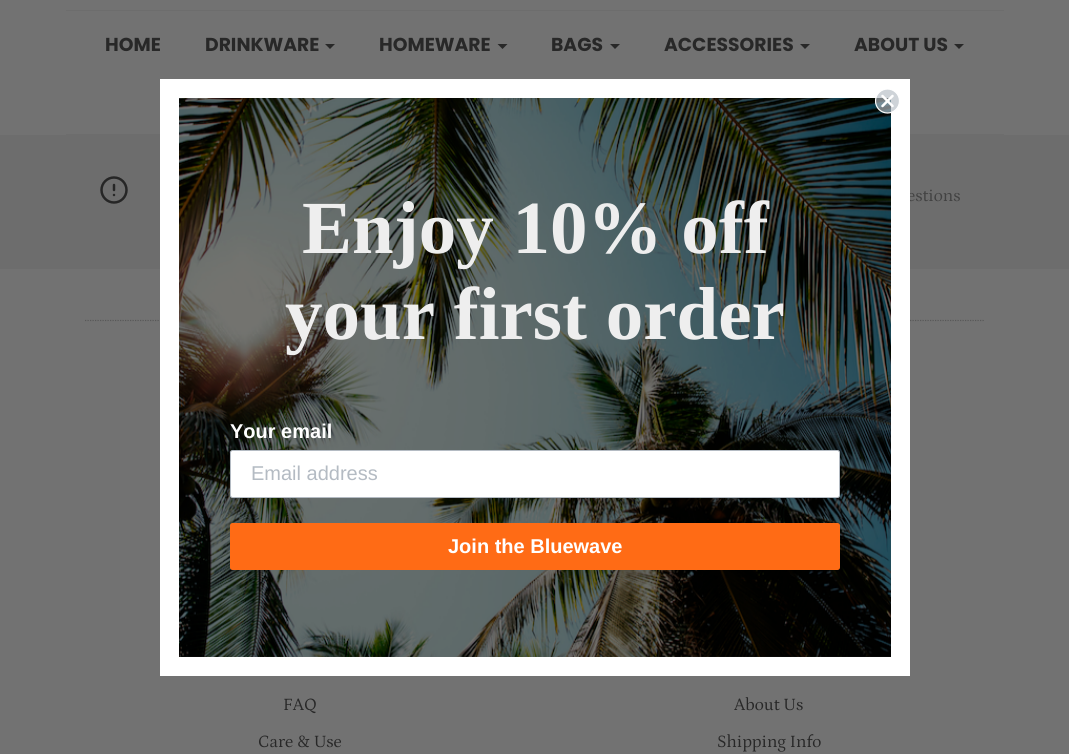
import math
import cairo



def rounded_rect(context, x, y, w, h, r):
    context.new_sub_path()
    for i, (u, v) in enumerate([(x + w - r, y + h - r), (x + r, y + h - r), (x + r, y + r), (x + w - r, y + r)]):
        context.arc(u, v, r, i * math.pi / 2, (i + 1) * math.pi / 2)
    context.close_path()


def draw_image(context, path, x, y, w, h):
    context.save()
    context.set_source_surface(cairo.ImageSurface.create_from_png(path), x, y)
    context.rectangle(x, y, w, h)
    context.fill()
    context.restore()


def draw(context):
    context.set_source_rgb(114 / 255, 114 / 255, 114 / 255)
    context.paint()
    context.set_source_rgb(109 / 255, 109 / 255, 109 / 255)
    context.rectangle(66, 10, 938, 1)
    context.fill()
    context.rectangle(66, 134, 938, 1)
    context.fill()
    context.set_source_rgb(40 / 255, 40 / 255, 40 / 255)
    context.new_path()
    context.move_to(325, 44)
    context.line_to(335, 44)
    context.line_to(330, 49)
    context.close_path()
    context.fill()
    context.new_path()
    context.move_to(497.5, 44)
    context.line_to(507.5, 44)
    context.line_to(502.5, 49)
    context.close_path()
    context.fill()
    context.new_path()
    context.move_to(610, 44)
    context.line_to(620, 44)
    context.line_to(615, 49)
    context.close_path()
    context.fill()
    context.new_path()
    context.move_to(800, 44)
    context.line_to(810, 44)
    context.line_to(805, 49)
    context.close_path()
    context.fill()
    context.new_path()
    context.move_to(954, 44)
    context.line_to(964, 44)
    context.line_to(959, 49)
    context.close_path()
    context.fill()
    context.set_source_rgb(109 / 255, 109 / 255, 109 / 255)
    context.rectangle(0, 135, 1069, 134)
    context.fill()
    context.arc(114, 190, 12.5, 0, 2 * math.pi)
    context.set_source_rgb(38 / 255, 38 / 255, 38 / 255)
    context.set_line_width(2.5)
    context.stroke()
    context.new_path()
    context.move_to(114, 185)
    context.line_to(114, 190)
    context.move_to(114, 195)
    context.line_to(114, 195)
    context.set_line_cap(cairo.LineCap.ROUND)
    context.set_line_join(cairo.LineJoin.ROUND)
    context.stroke()
    context.new_path()
    context.move_to(85, 320.5)
    context.line_to(985, 320.5)
    context.set_source_rgb(88 / 255, 88 / 255, 88 / 255)
    context.set_line_width(1.2)
    context.set_line_cap(cairo.LineCap.BUTT)
    context.set_line_join(cairo.LineJoin.MITER)
    context.set_dash([1.25, 1.25])
    context.stroke()
    draw_image(context, "images/1.png", 179, 98, 712, 559)
    context.select_font_face("Poppins", cairo.FontSlant.NORMAL, cairo.FontWeight.BOLD)
    context.set_font_size(18.75)
    context.set_source_rgb(40 / 255, 40 / 255, 40 / 255)
    context.move_to(105, 51)
    context.show_text("HOME")
    context.move_to(205, 51)
    context.show_text("DRINKWARE")
    context.move_to(379, 51)
    context.show_text("HOMEWARE")
    context.move_to(551, 51)
    context.show_text("BAGS")
    context.move_to(664, 51)
    context.show_text("ACCESSORIES")
    context.move_to(854, 51)
    context.show_text("ABOUT US")
    context.select_font_face("Petrona")
    context.set_font_size(17.5)
    context.set_source_rgb(66 / 255, 66 / 255, 66 / 255)
    context.move_to(907, 201)
    context.show_text("estions")
    context.set_source_rgb(40 / 255, 40 / 255, 40 / 255)
    context.move_to(283, 710)
    context.show_text("FAQ")
    context.move_to(258, 747)
    context.show_text("Care & Use")
    context.move_to(734, 710)
    context.show_text("About Us")
    context.move_to(717, 747)
    context.show_text("Shipping Info")
    context.rectangle(169.5, 88.5, 731, 578)
    context.set_source_rgb(1, 1, 1)
    context.set_line_width(19)
    context.set_dash([])
    context.stroke()
    context.set_source_rgba(180 / 255, 187 / 255, 195 / 255, 0.65)
    context.arc(887.5, 101, 12, 0, 2 * math.pi)
    context.fill()
    context.save()
    context.rectangle(875, 89, 25, 25)
    context.clip()
    context.arc(887.5, 101, 12, 0, 2 * math.pi)
    context.set_source_rgb(1, 1, 1)
    context.set_line_width(1.2)
    context.stroke()
    context.restore()
    context.new_path()
    context.move_to(882.5, 96)
    context.line_to(892.5, 106)
    context.move_to(882.5, 106)
    context.line_to(892.5, 96)
    context.close_path()
    context.set_source_rgb(1, 1, 1)
    context.set_line_width(2.5)
    context.set_line_cap(cairo.LineCap.ROUND)
    context.set_line_join(cairo.LineJoin.ROUND)
    context.stroke()
    context.select_font_face("Liberation Serif", cairo.FontSlant.NORMAL, cairo.FontWeight.BOLD)
    context.set_font_size(75)
    context.set_source_rgb(238 / 255, 238 / 255, 238 / 255)
    context.move_to(302, 253)
    context.show_text("Enjoy 10% off")
    context.move_to(285, 339)
    context.show_text("your first order")
    context.select_font_face("Liberation Sans", cairo.FontSlant.NORMAL, cairo.FontWeight.BOLD)
    context.set_font_size(20)
    context.set_source_rgb(1, 1, 1)
    context.move_to(230, 438)
    context.show_text("Your email")
    rounded_rect(context, 230.5, 450.5, 609, 47, 2)
    context.fill_preserve()
    context.set_source_rgb(180 / 255, 187 / 255, 195 / 255)
    context.set_line_width(1)
    context.set_line_cap(cairo.LineCap.BUTT)
    context.set_line_join(cairo.LineJoin.MITER)
    context.stroke()
    context.select_font_face("Liberation Sans")
    context.move_to(251, 480)
    context.show_text("Email address")
    context.set_source_rgb(1, 107 / 255, 21 / 255)
    rounded_rect(context, 230, 523, 610, 47, 2.5)
    context.fill()
    context.select_font_face("Liberation Sans", cairo.FontSlant.NORMAL, cairo.FontWeight.BOLD)
    context.set_source_rgb(1, 1, 1)
    context.move_to(448, 553)
    context.show_text("Join the Bluewave")


surface = cairo.ImageSurface(cairo.Format.RGB24, 1069, 754)
context = cairo.Context(surface)
options = cairo.FontOptions()
options.set_hint_metrics(cairo.HintMetrics.OFF)
options.set_hint_style(cairo.HintStyle.NONE)
context.set_font_options(options)
context.set_miter_limit(4)
draw(context)
surface.write_to_png("out.png")
